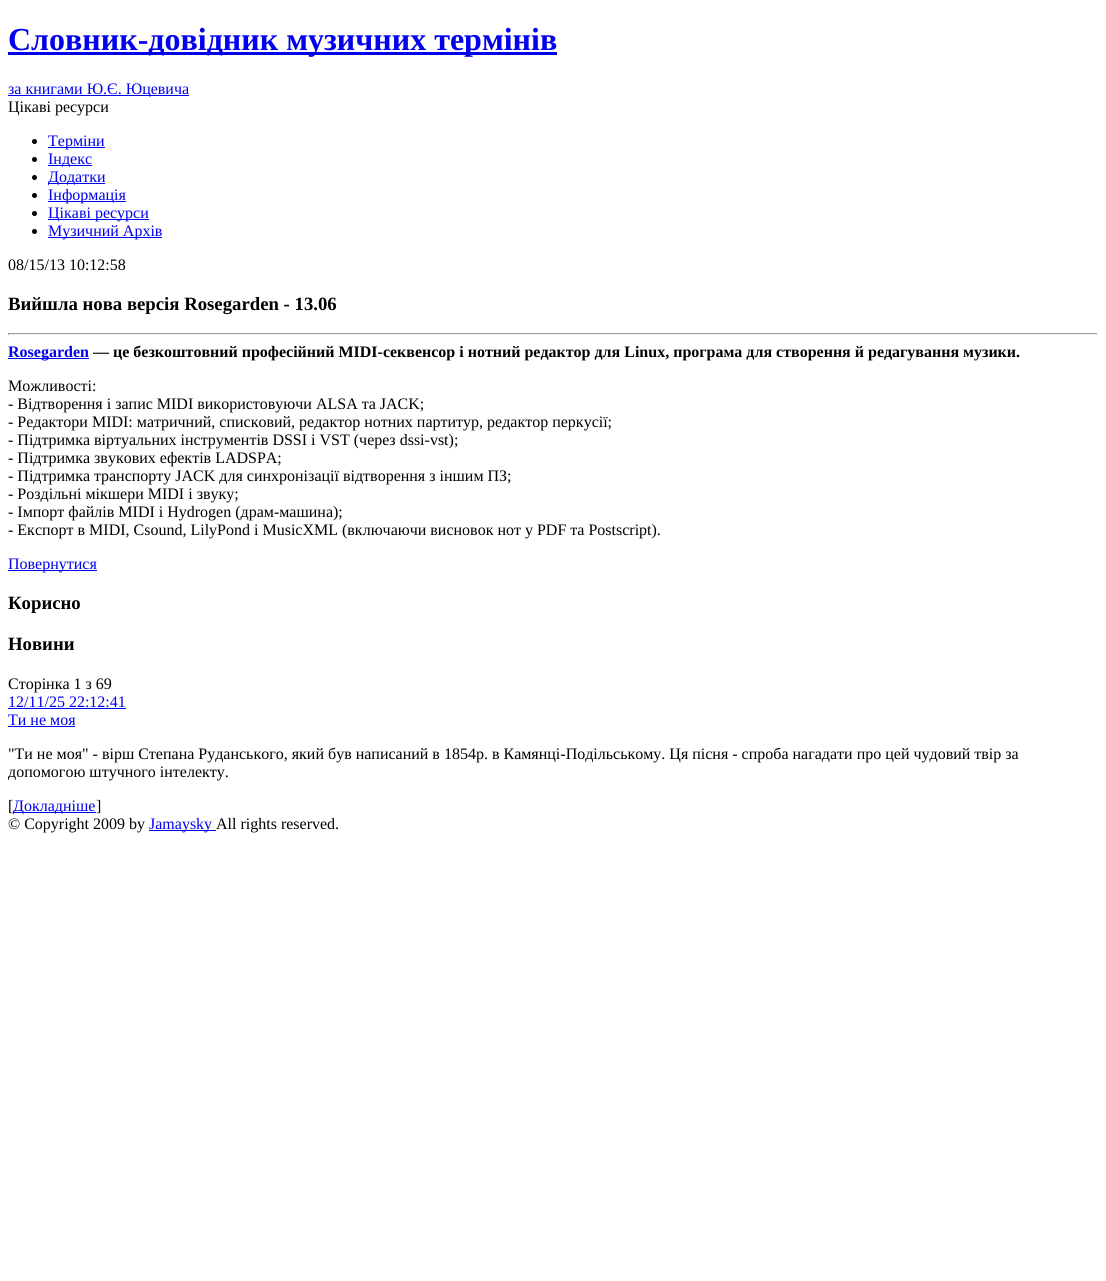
import math
import cairo



def draw(context):
    context.set_source_rgb(1, 1, 1)
    context.paint()
    context.set_source_rgb(0, 0, 238 / 255)
    context.rectangle(8, 52, 549, 3)
    context.fill()
    context.rectangle(8, 95, 181, 1)
    context.fill()
    context.set_source_rgb(0, 0, 0)
    context.arc(34.5, 141.5, 2.5, 0, 2 * math.pi)
    context.fill()
    context.set_source_rgb(0, 0, 238 / 255)
    context.rectangle(48, 147, 57, 1)
    context.fill()
    context.set_source_rgb(0, 0, 0)
    context.arc(34.5, 159.5, 2.5, 0, 2 * math.pi)
    context.fill()
    context.set_source_rgb(0, 0, 238 / 255)
    context.rectangle(48, 165, 44, 1)
    context.fill()
    context.set_source_rgb(0, 0, 0)
    context.arc(34.5, 177.5, 2.5, 0, 2 * math.pi)
    context.fill()
    context.set_source_rgb(0, 0, 238 / 255)
    context.rectangle(48, 183, 57, 1)
    context.fill()
    context.set_source_rgb(0, 0, 0)
    context.arc(34.5, 195.5, 2.5, 0, 2 * math.pi)
    context.fill()
    context.set_source_rgb(0, 0, 238 / 255)
    context.rectangle(48, 201, 78, 1)
    context.fill()
    context.set_source_rgb(0, 0, 0)
    context.arc(34.5, 213.5, 2.5, 0, 2 * math.pi)
    context.fill()
    context.set_source_rgb(0, 0, 238 / 255)
    context.rectangle(48, 219, 101, 1)
    context.fill()
    context.set_source_rgb(0, 0, 0)
    context.arc(34.5, 231.5, 2.5, 0, 2 * math.pi)
    context.fill()
    context.set_source_rgb(0, 0, 238 / 255)
    context.rectangle(48, 237, 114, 1)
    context.fill()
    context.set_source_rgb(159 / 255, 159 / 255, 159 / 255)
    context.rectangle(8, 333, 1090, 1)
    context.fill()
    context.set_source_rgb(238 / 255, 238 / 255, 238 / 255)
    context.rectangle(1097, 333, 1, 2)
    context.fill()
    context.rectangle(8, 334, 1090, 1)
    context.fill()
    context.set_source_rgb(159 / 255, 159 / 255, 159 / 255)
    context.rectangle(8, 333, 1, 2)
    context.fill()
    context.set_source_rgb(0, 0, 238 / 255)
    context.rectangle(8, 358, 81, 1)
    context.fill()
    context.rectangle(8, 570, 89, 1)
    context.fill()
    context.rectangle(8, 708, 118, 1)
    context.fill()
    context.rectangle(8, 726, 67, 1)
    context.fill()
    context.rectangle(13, 812, 83, 1)
    context.fill()
    context.rectangle(149, 830, 67, 1)
    context.fill()
    context.select_font_face("Liberation Serif", cairo.FontSlant.NORMAL, cairo.FontWeight.BOLD)
    context.set_font_size(32)
    context.move_to(8, 50)
    context.show_text("Словник-довідник музичних термінів")
    context.select_font_face("Liberation Serif")
    context.set_font_size(16)
    context.move_to(8, 94)
    context.show_text("за книгами Ю.Є. Юцевича")
    context.set_source_rgb(0, 0, 0)
    context.move_to(8, 112)
    context.show_text("Цікаві ресурси")
    context.set_source_rgb(0, 0, 238 / 255)
    context.move_to(48, 146)
    context.show_text("Терміни")
    context.move_to(48, 164)
    context.show_text("Індекс")
    context.move_to(48, 182)
    context.show_text("Додатки")
    context.move_to(48, 200)
    context.show_text("Інформація")
    context.move_to(48, 218)
    context.show_text("Цікаві ресурси")
    context.move_to(48, 236)
    context.show_text("Музичний Архів")
    context.set_source_rgb(0, 0, 0)
    context.move_to(8, 270)
    context.show_text("08/15/13 10:12:58")
    context.select_font_face("Liberation Serif", cairo.FontSlant.NORMAL, cairo.FontWeight.BOLD)
    context.set_font_size(18.75)
    context.move_to(8, 310)
    context.show_text("Вийшла нова версія Rosegarden - 13.06")
    context.set_font_size(16)
    context.set_source_rgb(0, 0, 238 / 255)
    context.move_to(8, 357)
    context.show_text("Rosegarden")
    context.set_source_rgb(0, 0, 0)
    context.move_to(93, 357)
    context.show_text("— це безкоштовний професійний MIDI-секвенсор і нотний редактор для Linux, програма для створення й редагування музики.")
    context.select_font_face("Liberation Serif")
    context.move_to(8, 391)
    context.show_text("Можливості:")
    context.move_to(8, 409)
    context.show_text("- Відтворення і запис MIDI використовуючи ALSA та JACK;")
    context.move_to(8, 427)
    context.show_text("- Редактори MIDI: матричний, списковий, редактор нотних партитур, редактор перкусії;")
    context.move_to(8, 445)
    context.show_text("- Підтримка віртуальних інструментів DSSI і VST (через dssi-vst);")
    context.move_to(8, 463)
    context.show_text("- Підтримка звукових ефектів LADSPA;")
    context.move_to(8, 481)
    context.show_text("- Підтримка транспорту JACK для синхронізації відтворення з іншим ПЗ;")
    context.move_to(8, 499)
    context.show_text("- Роздільні мікшери MIDI і звуку;")
    context.move_to(8, 517)
    context.show_text("- Імпорт файлів MIDI і Hydrogen (драм-машина);")
    context.move_to(8, 535)
    context.show_text("- Експорт в MIDI, Csound, LilyPond і MusicXML (включаючи висновок нот у PDF та Postscript).")
    context.set_source_rgb(0, 0, 238 / 255)
    context.move_to(8, 569)
    context.show_text("Повернутися")
    context.select_font_face("Liberation Serif", cairo.FontSlant.NORMAL, cairo.FontWeight.BOLD)
    context.set_font_size(18.75)
    context.set_source_rgb(0, 0, 0)
    context.move_to(8, 609)
    context.show_text("Корисно")
    context.move_to(8, 650)
    context.show_text("Новини")
    context.select_font_face("Liberation Serif")
    context.set_font_size(16)
    context.move_to(8, 689)
    context.show_text("Сторінка 1 з 69")
    context.set_source_rgb(0, 0, 238 / 255)
    context.move_to(8, 707)
    context.show_text("12/11/25 22:12:41")
    context.move_to(8, 725)
    context.show_text("Ти не моя")
    context.set_source_rgb(0, 0, 0)
    context.move_to(8, 759)
    context.show_text("\"Ти не моя\" - вірш Степана Руданського, який був написаний в 1854р. в Камянці-Подільському. Ця пісня - спроба нагадати про цей чудовий твір за")
    context.move_to(8, 777)
    context.show_text("допомогою штучного інтелекту.")
    context.move_to(8, 811)
    context.show_text("[")
    context.set_source_rgb(0, 0, 238 / 255)
    context.move_to(13, 811)
    context.show_text("Докладніше")
    context.set_source_rgb(0, 0, 0)
    context.move_to(96, 811)
    context.show_text("]")
    context.move_to(8, 829)
    context.show_text("© Copyright 2009 by")
    context.set_source_rgb(0, 0, 238 / 255)
    context.move_to(149, 829)
    context.show_text("Jamaysky")
    context.set_source_rgb(0, 0, 0)
    context.move_to(216, 829)
    context.show_text("All rights reserved.")


surface = cairo.ImageSurface(cairo.Format.RGB24, 1106, 1281)
context = cairo.Context(surface)
options = cairo.FontOptions()
options.set_hint_metrics(cairo.HintMetrics.OFF)
options.set_hint_style(cairo.HintStyle.NONE)
context.set_font_options(options)
context.set_miter_limit(4)
draw(context)
surface.write_to_png("out.png")
